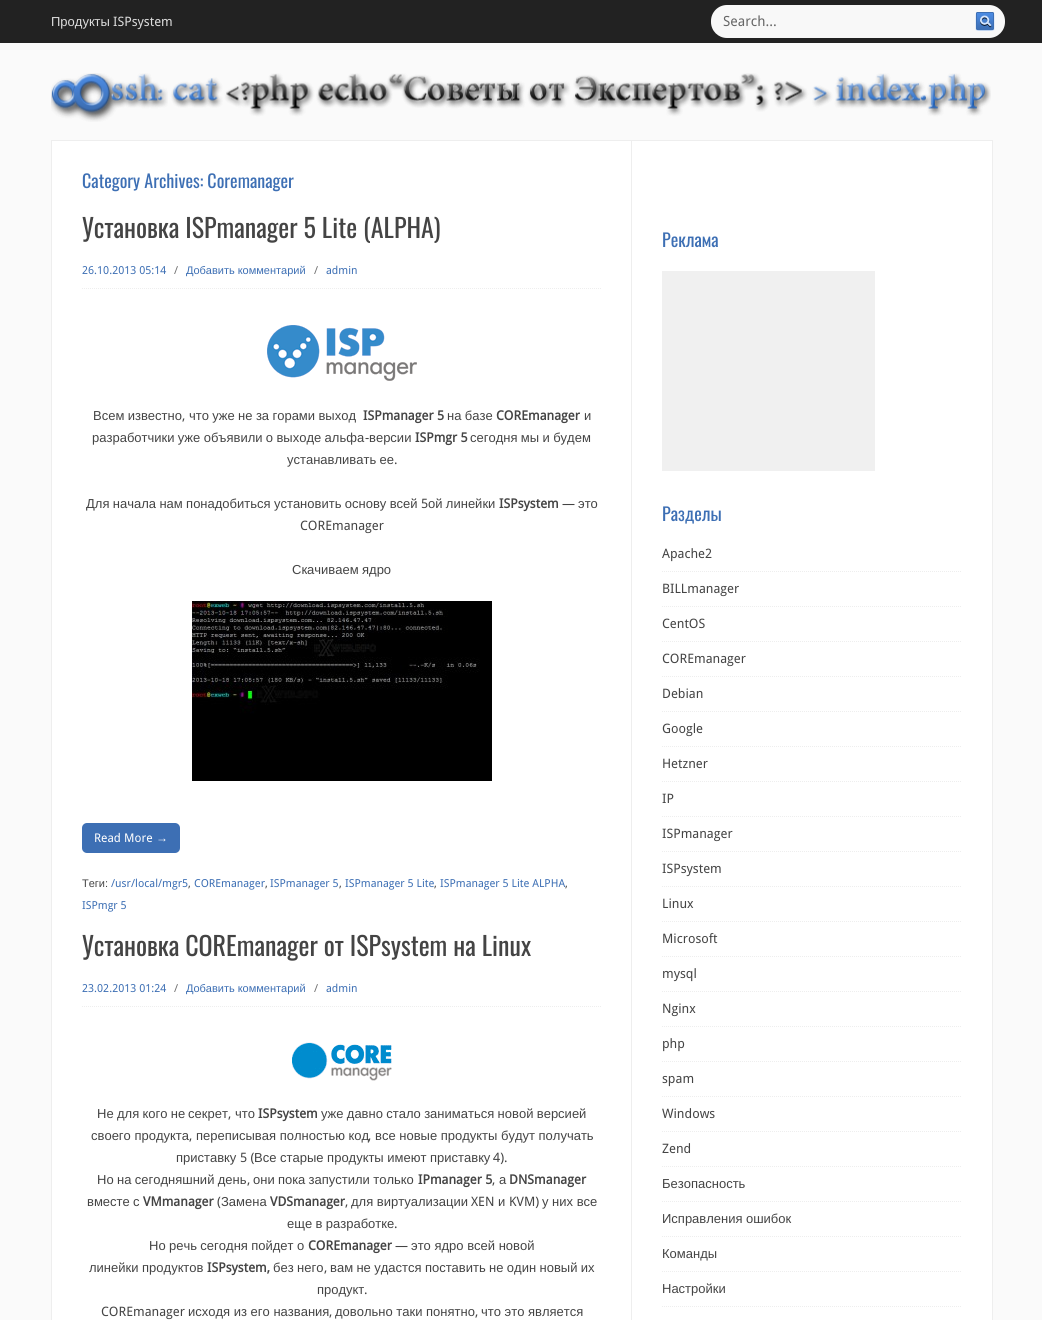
import math
import cairo



def draw_spaced(context, x, y, s, letter, word):
    context.move_to(x, y)
    for ch in s:
        context.show_text(ch)
        context.rel_move_to(letter + word * (ch == ' '), 0)


def rounded_rect(context, x, y, w, h, r):
    context.new_sub_path()
    for i, (u, v) in enumerate([(x + w - r, y + h - r), (x + r, y + h - r), (x + r, y + r), (x + w - r, y + r)]):
        context.arc(u, v, r, i * math.pi / 2, (i + 1) * math.pi / 2)
    context.close_path()


def draw_image(context, path, x, y, w, h):
    context.save()
    context.set_source_surface(cairo.ImageSurface.create_from_png(path), x, y)
    context.rectangle(x, y, w, h)
    context.fill()
    context.restore()


def draw(context):
    context.set_source_rgb(250 / 255, 250 / 255, 250 / 255)
    context.paint()
    context.set_source_rgb(34 / 255, 34 / 255, 34 / 255)
    context.rectangle(0, 0, 1042, 43)
    context.fill()
    context.set_source_rgb(248 / 255, 248 / 255, 248 / 255)
    rounded_rect(context, 711, 5, 294, 33, 16)
    context.fill()
    draw_image(context, "images/1.png", 975, 12, 20, 19)
    draw_image(context, "images/2.png", 51, 73, 940, 49)
    context.set_source_rgb(1, 1, 1)
    context.rectangle(51.5, 140.5, 941, 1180)
    context.fill_preserve()
    context.set_source_rgb(238 / 255, 238 / 255, 238 / 255)
    context.set_line_width(1)
    context.stroke()
    context.rectangle(631, 141, 1, 1179)
    context.fill()
    context.new_path()
    context.move_to(82, 288.5)
    context.line_to(602, 288.5)
    context.set_dash([1, 1])
    context.stroke()
    draw_image(context, "images/3.png", 267, 325, 150, 56)
    draw_image(context, "images/4.png", 192, 601, 300, 180)
    context.set_source_rgb(61 / 255, 111 / 255, 180 / 255)
    rounded_rect(context, 82, 823, 98, 30, 5)
    context.fill()
    context.new_path()
    context.move_to(82, 1006.5)
    context.line_to(602, 1006.5)
    context.set_source_rgb(238 / 255, 238 / 255, 238 / 255)
    context.stroke()
    draw_image(context, "images/5.png", 292, 1042, 100, 39)
    context.set_source_rgb(240 / 255, 240 / 255, 240 / 255)
    context.rectangle(662, 271, 213, 200)
    context.fill()
    context.new_path()
    context.move_to(662, 571.5)
    context.line_to(962, 571.5)
    context.set_source_rgb(238 / 255, 238 / 255, 238 / 255)
    context.stroke()
    context.new_path()
    context.move_to(662, 606.5)
    context.line_to(962, 606.5)
    context.stroke()
    context.new_path()
    context.move_to(662, 641.5)
    context.line_to(962, 641.5)
    context.stroke()
    context.new_path()
    context.move_to(662, 676.5)
    context.line_to(962, 676.5)
    context.stroke()
    context.new_path()
    context.move_to(662, 711.5)
    context.line_to(962, 711.5)
    context.stroke()
    context.new_path()
    context.move_to(662, 746.5)
    context.line_to(962, 746.5)
    context.stroke()
    context.new_path()
    context.move_to(662, 781.5)
    context.line_to(962, 781.5)
    context.stroke()
    context.new_path()
    context.move_to(662, 816.5)
    context.line_to(962, 816.5)
    context.stroke()
    context.new_path()
    context.move_to(662, 851.5)
    context.line_to(962, 851.5)
    context.stroke()
    context.new_path()
    context.move_to(662, 886.5)
    context.line_to(962, 886.5)
    context.stroke()
    context.new_path()
    context.move_to(662, 921.5)
    context.line_to(962, 921.5)
    context.stroke()
    context.new_path()
    context.move_to(662, 956.5)
    context.line_to(962, 956.5)
    context.stroke()
    context.new_path()
    context.move_to(662, 991.5)
    context.line_to(962, 991.5)
    context.stroke()
    context.new_path()
    context.move_to(662, 1026.5)
    context.line_to(962, 1026.5)
    context.stroke()
    context.new_path()
    context.move_to(662, 1061.5)
    context.line_to(962, 1061.5)
    context.stroke()
    context.new_path()
    context.move_to(662, 1096.5)
    context.line_to(962, 1096.5)
    context.stroke()
    context.new_path()
    context.move_to(662, 1131.5)
    context.line_to(962, 1131.5)
    context.stroke()
    context.new_path()
    context.move_to(662, 1166.5)
    context.line_to(962, 1166.5)
    context.stroke()
    context.new_path()
    context.move_to(662, 1201.5)
    context.line_to(962, 1201.5)
    context.stroke()
    context.new_path()
    context.move_to(662, 1236.5)
    context.line_to(962, 1236.5)
    context.stroke()
    context.new_path()
    context.move_to(662, 1271.5)
    context.line_to(962, 1271.5)
    context.stroke()
    context.new_path()
    context.move_to(662, 1306.5)
    context.line_to(962, 1306.5)
    context.stroke()
    context.select_font_face("Liberation Sans")
    context.set_font_size(13)
    context.set_source_rgb(221 / 255, 221 / 255, 221 / 255)
    context.move_to(51, 26)
    context.show_text("Продукты")
    context.select_font_face("Droid Sans")
    context.move_to(113, 26)
    context.show_text("ISPsystem")
    context.set_font_size(14)
    context.set_source_rgb(102 / 255, 102 / 255, 102 / 255)
    context.move_to(723, 26)
    context.show_text("Search...")
    context.select_font_face("Oswald")
    context.set_font_size(18)
    context.set_source_rgb(61 / 255, 111 / 255, 180 / 255)
    context.move_to(82, 188)
    context.show_text("Category Archives: Coremanager")
    context.set_font_size(26)
    context.set_source_rgb(68 / 255, 68 / 255, 68 / 255)
    context.move_to(82, 238)
    context.show_text("Установка ISPmanager 5 Lite (ALPHA)")
    context.select_font_face("Droid Sans")
    context.set_font_size(11)
    context.set_source_rgb(61 / 255, 111 / 255, 180 / 255)
    context.move_to(82, 274)
    context.show_text("26.10.2013 05:14")
    context.set_source_rgb(112 / 255, 112 / 255, 112 / 255)
    context.move_to(174, 274)
    context.show_text("/")
    context.select_font_face("Liberation Sans")
    context.set_source_rgb(61 / 255, 111 / 255, 180 / 255)
    context.move_to(186, 274)
    context.show_text("Добавить комментарий")
    context.select_font_face("Droid Sans")
    context.set_source_rgb(112 / 255, 112 / 255, 112 / 255)
    context.move_to(314, 274)
    context.show_text("/")
    context.set_source_rgb(61 / 255, 111 / 255, 180 / 255)
    context.move_to(326, 274)
    context.show_text("admin")
    context.select_font_face("Liberation Sans")
    context.set_font_size(13)
    context.set_source_rgb(68 / 255, 68 / 255, 68 / 255)
    draw_spaced(context, 93, 420, "Всем известно", 0, -0.25)
    context.select_font_face("Droid Sans")
    context.move_to(182, 420)
    context.show_text(",")
    context.select_font_face("Liberation Sans")
    draw_spaced(context, 189, 420, "что уже не за горами выход", 0, -0.25)
    context.select_font_face("Droid Sans", cairo.FontSlant.NORMAL, cairo.FontWeight.BOLD)
    context.move_to(363, 420)
    context.show_text("ISPmanager 5")
    context.select_font_face("Liberation Sans")
    draw_spaced(context, 447, 420, "на базе", 0, -0.25)
    context.select_font_face("Droid Sans", cairo.FontSlant.NORMAL, cairo.FontWeight.BOLD)
    context.move_to(496, 420)
    context.show_text("COREmanager")
    context.select_font_face("Liberation Sans")
    context.move_to(584, 420)
    context.show_text("и")
    draw_spaced(context, 92, 442, "разработчики уже объявили о выходе альфа", 0, -0.25)
    context.select_font_face("Droid Sans")
    context.move_to(365, 442)
    context.show_text("-")
    context.select_font_face("Liberation Sans")
    context.move_to(369, 442)
    context.show_text("версии")
    context.select_font_face("Droid Sans", cairo.FontSlant.NORMAL, cairo.FontWeight.BOLD)
    context.move_to(415, 442)
    context.show_text("ISPmgr 5")
    context.select_font_face("Liberation Sans")
    draw_spaced(context, 470, 442, "сегодня мы и будем", 0, -0.25)
    draw_spaced(context, 287, 464, "устанавливать ее", 0, -0.25)
    context.select_font_face("Droid Sans")
    context.move_to(394, 464)
    context.show_text(".")
    context.select_font_face("Liberation Sans")
    draw_spaced(context, 86, 508, "Для начала нам понадобиться установить основу всей", 0, -0.25)
    context.select_font_face("Droid Sans")
    context.move_to(421, 508)
    context.show_text("5")
    context.select_font_face("Liberation Sans")
    draw_spaced(context, 428, 508, "ой линейки", 0, -0.25)
    context.select_font_face("Droid Sans", cairo.FontSlant.NORMAL, cairo.FontWeight.BOLD)
    context.move_to(499, 508)
    context.show_text("ISPsystem")
    context.select_font_face("Droid Sans")
    context.move_to(562, 508)
    context.show_text("—")
    context.select_font_face("Liberation Sans")
    context.move_to(578, 508)
    context.show_text("это")
    context.select_font_face("Droid Sans")
    context.move_to(300, 530)
    context.show_text("COREmanager")
    context.select_font_face("Liberation Sans")
    draw_spaced(context, 292, 574, "Скачиваем ядро", 0, -0.25)
    context.select_font_face("Droid Sans")
    context.set_font_size(12)
    context.set_source_rgb(1, 1, 1)
    context.move_to(94, 842)
    context.show_text("Read More")
    context.select_font_face("Liberation Sans")
    context.move_to(156, 842)
    context.show_text("→")
    context.set_font_size(11)
    context.set_source_rgb(68 / 255, 68 / 255, 68 / 255)
    context.move_to(82, 887)
    context.show_text("Теги:")
    context.select_font_face("Droid Sans")
    context.set_source_rgb(61 / 255, 111 / 255, 180 / 255)
    context.move_to(111, 887)
    context.show_text("/usr/local/mgr5")
    context.set_source_rgb(68 / 255, 68 / 255, 68 / 255)
    context.move_to(188, 887)
    context.show_text(",")
    context.set_source_rgb(61 / 255, 111 / 255, 180 / 255)
    context.move_to(194, 887)
    context.show_text("COREmanager")
    context.set_source_rgb(68 / 255, 68 / 255, 68 / 255)
    context.move_to(265, 887)
    context.show_text(",")
    context.set_source_rgb(61 / 255, 111 / 255, 180 / 255)
    context.move_to(270, 887)
    context.show_text("ISPmanager 5")
    context.set_source_rgb(68 / 255, 68 / 255, 68 / 255)
    context.move_to(339, 887)
    context.show_text(",")
    context.set_source_rgb(61 / 255, 111 / 255, 180 / 255)
    context.move_to(345, 887)
    context.show_text("ISPmanager 5 Lite")
    context.set_source_rgb(68 / 255, 68 / 255, 68 / 255)
    context.move_to(434, 887)
    context.show_text(",")
    context.set_source_rgb(61 / 255, 111 / 255, 180 / 255)
    context.move_to(440, 887)
    context.show_text("ISPmanager 5 Lite ALPHA")
    context.set_source_rgb(68 / 255, 68 / 255, 68 / 255)
    context.move_to(565, 887)
    context.show_text(",")
    context.set_source_rgb(61 / 255, 111 / 255, 180 / 255)
    context.move_to(82, 909)
    context.show_text("ISPmgr 5")
    context.select_font_face("Oswald")
    context.set_font_size(26)
    context.set_source_rgb(68 / 255, 68 / 255, 68 / 255)
    context.move_to(82, 956)
    context.show_text("Установка COREmanager от ISPsystem на Linux")
    context.select_font_face("Droid Sans")
    context.set_font_size(11)
    context.set_source_rgb(61 / 255, 111 / 255, 180 / 255)
    context.move_to(82, 992)
    context.show_text("23.02.2013 01:24")
    context.set_source_rgb(112 / 255, 112 / 255, 112 / 255)
    context.move_to(174, 992)
    context.show_text("/")
    context.select_font_face("Liberation Sans")
    context.set_source_rgb(61 / 255, 111 / 255, 180 / 255)
    context.move_to(186, 992)
    context.show_text("Добавить комментарий")
    context.select_font_face("Droid Sans")
    context.set_source_rgb(112 / 255, 112 / 255, 112 / 255)
    context.move_to(314, 992)
    context.show_text("/")
    context.set_source_rgb(61 / 255, 111 / 255, 180 / 255)
    context.move_to(326, 992)
    context.show_text("admin")
    context.select_font_face("Liberation Sans")
    context.set_font_size(13)
    context.set_source_rgb(68 / 255, 68 / 255, 68 / 255)
    draw_spaced(context, 97, 1118, "Не для кого не", 0, -0.25)
    context.move_to(188, 1118)
    context.show_text("секрет")
    context.select_font_face("Droid Sans")
    context.move_to(228, 1118)
    context.show_text(",")
    context.select_font_face("Liberation Sans")
    context.move_to(235, 1118)
    context.show_text("что")
    context.select_font_face("Droid Sans", cairo.FontSlant.NORMAL, cairo.FontWeight.BOLD)
    context.move_to(258, 1118)
    context.show_text("ISPsystem")
    context.select_font_face("Liberation Sans")
    draw_spaced(context, 321, 1118, "уже давно стало заниматься новой версией", 0, -0.25)
    context.move_to(91, 1140)
    context.show_text("своего продукта")
    context.select_font_face("Droid Sans")
    context.move_to(189, 1140)
    context.show_text(",")
    context.select_font_face("Liberation Sans")
    context.move_to(196, 1140)
    context.show_text("переписывая полностью код")
    context.select_font_face("Droid Sans")
    context.move_to(368, 1140)
    context.show_text(",")
    context.select_font_face("Liberation Sans")
    context.move_to(375, 1140)
    context.show_text("все новые продукты будут получать")
    context.move_to(176, 1162)
    context.show_text("приставку")
    context.select_font_face("Droid Sans")
    context.move_to(240, 1162)
    context.show_text("5 (")
    context.select_font_face("Liberation Sans")
    context.move_to(254, 1162)
    context.show_text("Все старые продукты имеют приставку")
    context.select_font_face("Droid Sans")
    context.move_to(493, 1162)
    context.show_text("4).")
    context.select_font_face("Liberation Sans")
    draw_spaced(context, 97, 1184, "Но на сегодняшний день", 0, -0.25)
    context.select_font_face("Droid Sans")
    context.move_to(247, 1184)
    context.show_text(",")
    context.select_font_face("Liberation Sans")
    draw_spaced(context, 253, 1184, "они пока запустили только", 0, -0.25)
    context.select_font_face("Droid Sans", cairo.FontSlant.NORMAL, cairo.FontWeight.BOLD)
    context.move_to(418, 1184)
    context.show_text("IPmanager 5")
    context.select_font_face("Droid Sans")
    context.move_to(492, 1184)
    context.show_text(",")
    context.select_font_face("Liberation Sans")
    context.move_to(499, 1184)
    context.show_text("а")
    context.select_font_face("Droid Sans", cairo.FontSlant.NORMAL, cairo.FontWeight.BOLD)
    context.move_to(509, 1184)
    context.show_text("DNSmanager")
    context.select_font_face("Liberation Sans")
    draw_spaced(context, 87, 1206, "вместе с", 0, -0.25)
    context.select_font_face("Droid Sans", cairo.FontSlant.NORMAL, cairo.FontWeight.BOLD)
    context.move_to(143, 1206)
    context.show_text("VMmanager")
    context.select_font_face("Droid Sans")
    context.move_to(217, 1206)
    context.show_text("(")
    context.select_font_face("Liberation Sans")
    context.move_to(221, 1206)
    context.show_text("Замена")
    context.select_font_face("Droid Sans", cairo.FontSlant.NORMAL, cairo.FontWeight.BOLD)
    context.move_to(270, 1206)
    context.show_text("VDSmanager")
    context.select_font_face("Droid Sans")
    context.move_to(345, 1206)
    context.show_text(",")
    context.select_font_face("Liberation Sans")
    context.move_to(351, 1206)
    context.show_text("для виртуализации")
    context.select_font_face("Droid Sans")
    context.move_to(471, 1206)
    context.show_text("XEN")
    context.select_font_face("Liberation Sans")
    context.move_to(498, 1206)
    context.show_text("и")
    context.select_font_face("Droid Sans")
    context.move_to(509, 1206)
    context.show_text("KVM)")
    context.select_font_face("Liberation Sans")
    context.move_to(542, 1206)
    context.show_text("у них все")
    draw_spaced(context, 287, 1228, "еще в разработке", 0, -0.25)
    context.select_font_face("Droid Sans")
    context.move_to(394, 1228)
    context.show_text(".")
    context.select_font_face("Liberation Sans")
    draw_spaced(context, 149, 1250, "Но речь сегодня пойдет о", 0, -0.25)
    context.select_font_face("Droid Sans", cairo.FontSlant.NORMAL, cairo.FontWeight.BOLD)
    context.move_to(308, 1250)
    context.show_text("COREmanager")
    context.select_font_face("Droid Sans")
    context.move_to(395, 1250)
    context.show_text("—")
    context.select_font_face("Liberation Sans")
    context.move_to(411, 1250)
    context.show_text("это ядро всей новой")
    context.move_to(89, 1272)
    context.show_text("линейки продуктов")
    context.select_font_face("Droid Sans", cairo.FontSlant.NORMAL, cairo.FontWeight.BOLD)
    context.move_to(207, 1272)
    context.show_text("ISPsystem,")
    context.select_font_face("Liberation Sans")
    draw_spaced(context, 273, 1272, "без него", 0, -0.25)
    context.select_font_face("Droid Sans")
    context.move_to(324, 1272)
    context.show_text(",")
    context.select_font_face("Liberation Sans")
    draw_spaced(context, 330, 1272, "вам не удастся поставить не один новый их", 0, -0.25)
    context.move_to(317, 1294)
    context.show_text("продукт")
    context.select_font_face("Droid Sans")
    context.move_to(364, 1294)
    context.show_text(".")
    context.move_to(101, 1316)
    context.show_text("COREmanager")
    context.select_font_face("Liberation Sans")
    context.move_to(188, 1316)
    context.show_text("исходя из его названия")
    context.select_font_face("Droid Sans")
    context.move_to(329, 1316)
    context.show_text(",")
    context.select_font_face("Liberation Sans")
    context.move_to(335, 1316)
    context.show_text("довольно таки понятно")
    context.select_font_face("Droid Sans")
    context.move_to(475, 1316)
    context.show_text(",")
    context.select_font_face("Liberation Sans")
    context.move_to(481, 1316)
    context.show_text("что это является")
    context.select_font_face("Oswald")
    context.set_font_size(18)
    context.set_source_rgb(61 / 255, 111 / 255, 180 / 255)
    context.move_to(662, 247)
    context.show_text("Реклама")
    context.move_to(662, 521)
    context.show_text("Разделы")
    context.select_font_face("Droid Sans")
    context.set_font_size(13)
    context.set_source_rgb(68 / 255, 68 / 255, 68 / 255)
    context.move_to(662, 558)
    context.show_text("Apache2")
    context.move_to(662, 593)
    context.show_text("BILLmanager")
    context.move_to(662, 628)
    context.show_text("CentOS")
    context.move_to(662, 663)
    context.show_text("COREmanager")
    context.move_to(662, 698)
    context.show_text("Debian")
    context.move_to(662, 733)
    context.show_text("Google")
    context.move_to(662, 768)
    context.show_text("Hetzner")
    context.move_to(662, 803)
    context.show_text("IP")
    context.move_to(662, 838)
    context.show_text("ISPmanager")
    context.move_to(662, 873)
    context.show_text("ISPsystem")
    context.move_to(662, 908)
    context.show_text("Linux")
    context.move_to(662, 943)
    context.show_text("Microsoft")
    context.move_to(662, 978)
    context.show_text("mysql")
    context.move_to(662, 1013)
    context.show_text("Nginx")
    context.move_to(662, 1048)
    context.show_text("php")
    context.move_to(662, 1083)
    context.show_text("spam")
    context.move_to(662, 1118)
    context.show_text("Windows")
    context.move_to(662, 1153)
    context.show_text("Zend")
    context.select_font_face("Liberation Sans")
    context.move_to(662, 1188)
    context.show_text("Безопасность")
    draw_spaced(context, 662, 1223, "Исправления ошибок", 0, -0.25)
    context.move_to(662, 1258)
    context.show_text("Команды")
    context.move_to(662, 1293)
    context.show_text("Настройки")


surface = cairo.ImageSurface(cairo.Format.RGB24, 1042, 1320)
context = cairo.Context(surface)
options = cairo.FontOptions()
options.set_hint_metrics(cairo.HintMetrics.OFF)
options.set_hint_style(cairo.HintStyle.NONE)
context.set_font_options(options)
context.set_miter_limit(4)
draw(context)
surface.write_to_png("out.png")
